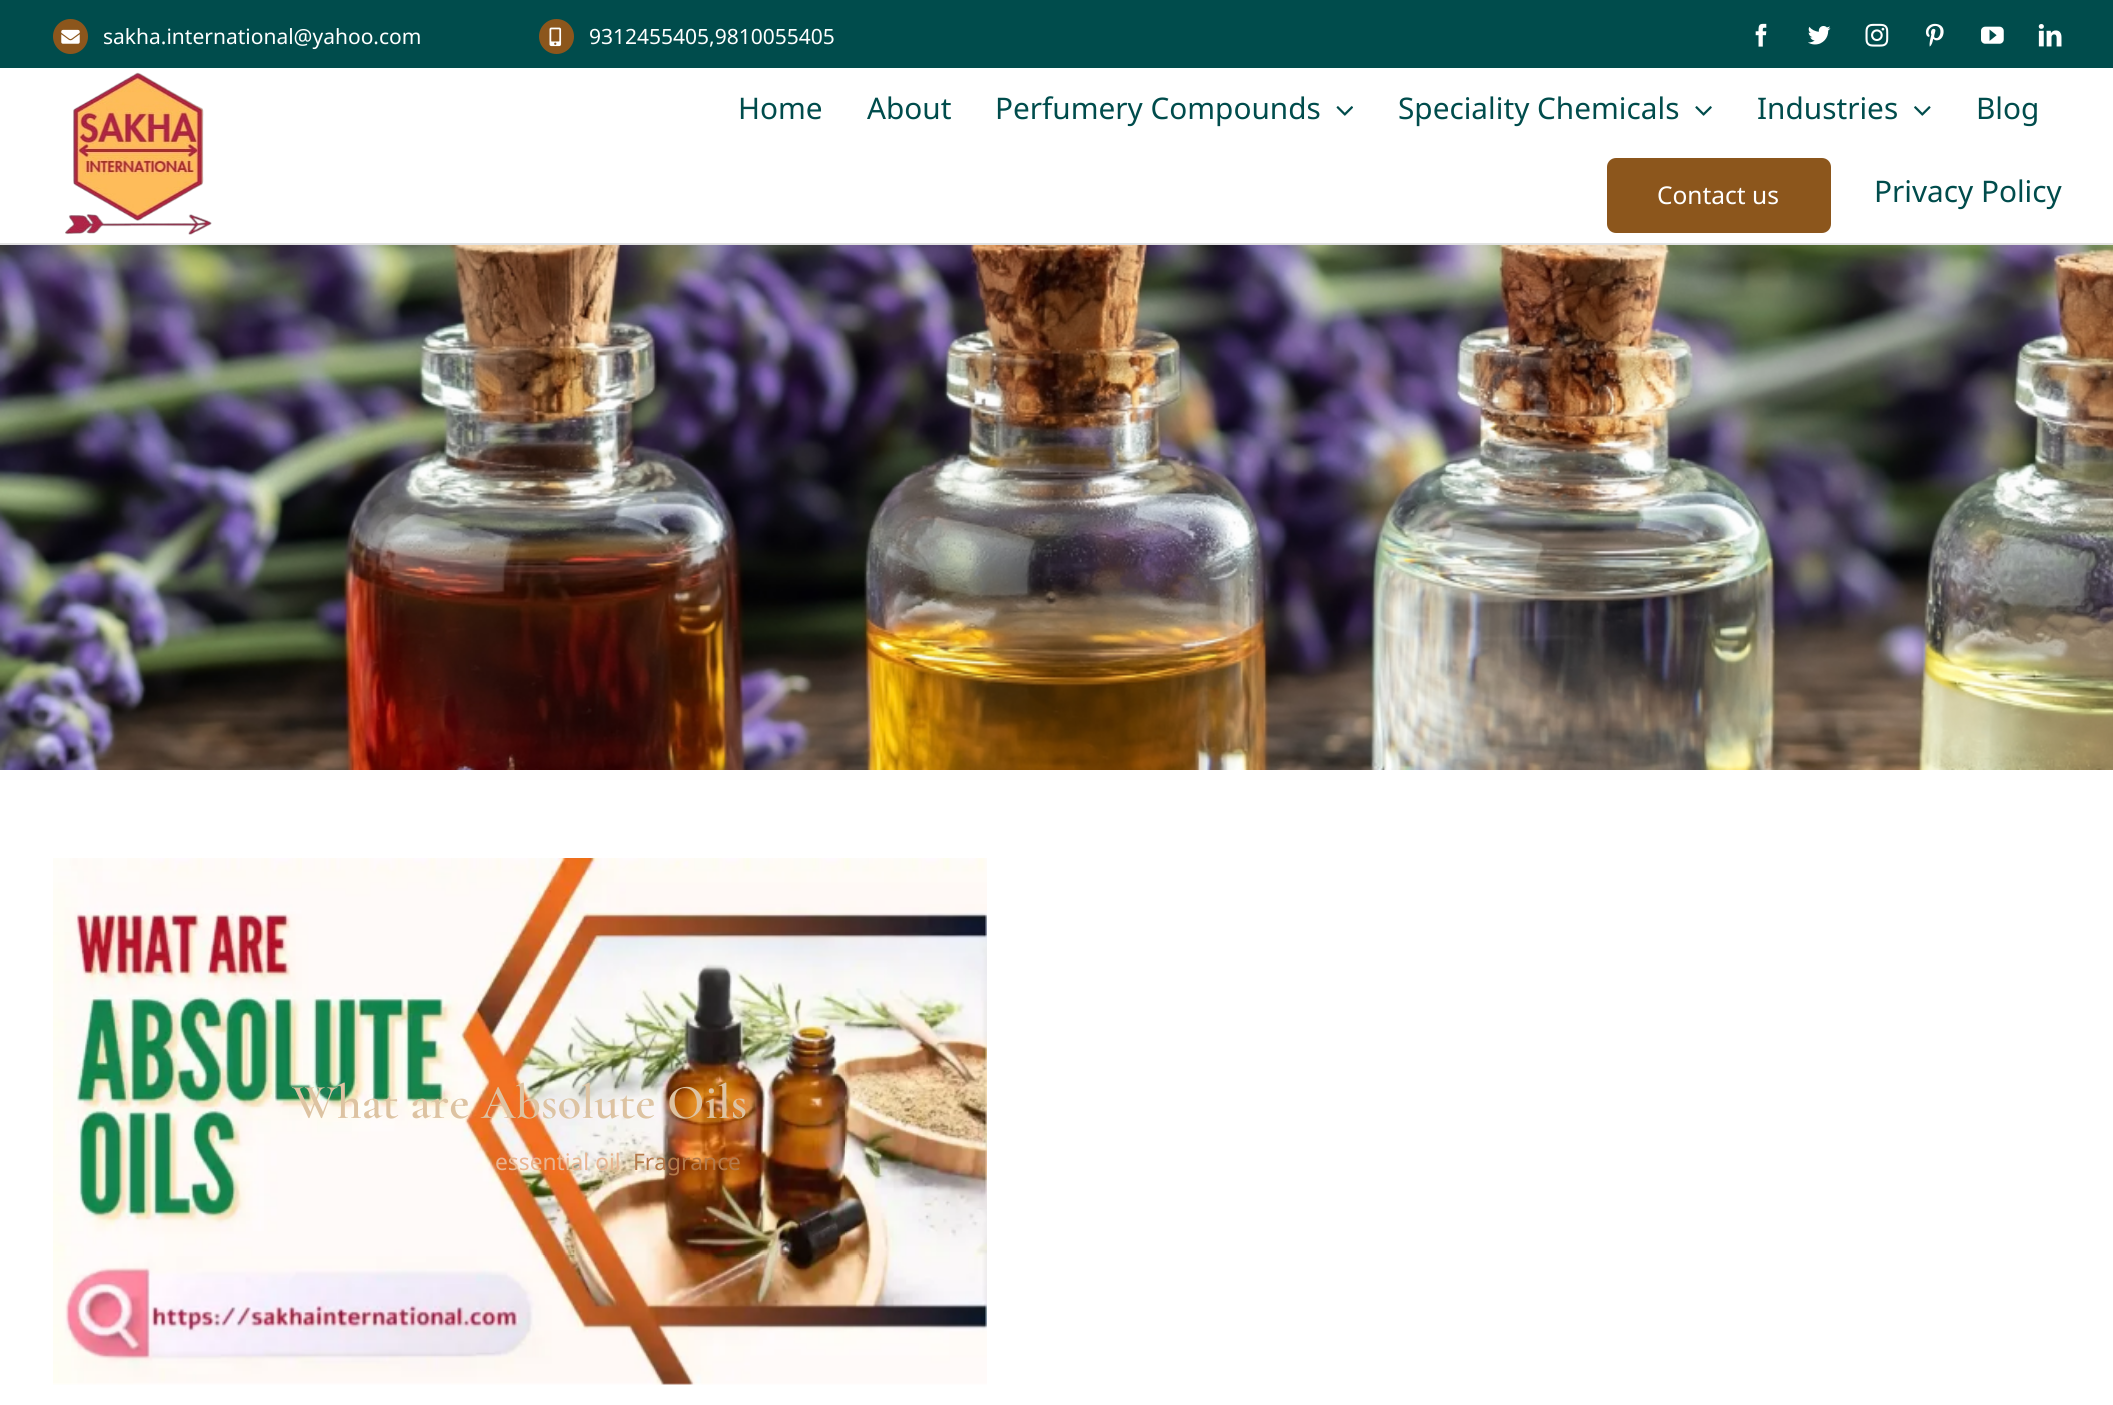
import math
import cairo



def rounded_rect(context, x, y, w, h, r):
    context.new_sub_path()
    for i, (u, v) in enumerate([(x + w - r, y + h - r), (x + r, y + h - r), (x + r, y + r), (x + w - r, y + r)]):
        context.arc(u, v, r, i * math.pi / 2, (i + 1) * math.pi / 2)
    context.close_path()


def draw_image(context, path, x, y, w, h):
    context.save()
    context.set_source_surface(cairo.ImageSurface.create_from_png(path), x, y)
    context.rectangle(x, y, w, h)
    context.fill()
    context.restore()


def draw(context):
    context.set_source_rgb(1, 1, 1)
    context.paint()
    context.set_source_rgb(0, 76 / 255, 76 / 255)
    context.rectangle(0, 0, 2113, 68)
    context.fill()
    context.set_source_rgb(140 / 255, 86 / 255, 28 / 255)
    context.arc(70.5, 36.5, 17.5, 0, 2 * math.pi)
    context.fill()
    draw_image(context, "images/1.png", 61, 29, 19, 15)
    context.arc(556.5, 36.5, 17.5, 0, 2 * math.pi)
    context.fill()
    draw_image(context, "images/2.png", 549, 27, 13, 20)
    draw_image(context, "images/3.png", 1755, 23, 12, 24)
    draw_image(context, "images/4.png", 1808, 26, 23, 19)
    draw_image(context, "images/5.png", 1865, 23, 24, 24)
    draw_image(context, "images/6.png", 1925, 23, 19, 24)
    draw_image(context, "images/7.png", 1981, 26, 23, 18)
    draw_image(context, "images/8.png", 2038, 24, 24, 23)
    context.set_source_rgb(226 / 255, 226 / 255, 226 / 255)
    context.rectangle(0, 243, 2113, 2)
    context.fill()
    draw_image(context, "images/9.png", 65, 72, 147, 163)
    draw_image(context, "images/10.png", 1336, 106, 17, 10)
    draw_image(context, "images/11.png", 1695, 106, 17, 10)
    draw_image(context, "images/12.png", 1914, 106, 17, 10)
    context.set_source_rgb(140 / 255, 86 / 255, 28 / 255)
    rounded_rect(context, 1607, 158, 224, 75, 9)
    context.fill()
    draw_image(context, "images/13.png", 0, 245, 2113, 525)
    draw_image(context, "images/14.png", 53, 858, 934, 527)
    context.select_font_face("Noto Sans")
    context.set_font_size(21)
    context.set_source_rgb(1, 1, 1)
    context.move_to(103, 44)
    context.show_text("sakha.international@yahoo.com")
    context.move_to(589, 44)
    context.show_text("9312455405,9810055405")
    context.set_font_size(29.75)
    context.set_source_rgb(0, 76 / 255, 76 / 255)
    context.move_to(738, 119)
    context.show_text("Home")
    context.move_to(867, 119)
    context.show_text("About")
    context.move_to(995, 119)
    context.show_text("Perfumery Compounds")
    context.move_to(1398, 119)
    context.show_text("Speciality Chemicals")
    context.move_to(1757, 119)
    context.show_text("Industries")
    context.move_to(1976, 119)
    context.show_text("Blog")
    context.set_font_size(24.5)
    context.set_source_rgb(1, 1, 1)
    context.move_to(1657, 204)
    context.show_text("Contact us")
    context.set_font_size(29.75)
    context.set_source_rgb(0, 76 / 255, 76 / 255)
    context.move_to(1874, 202)
    context.show_text("Privacy Policy")
    context.select_font_face("Cormorant Garamond SemiBold")
    context.set_font_size(49)
    context.set_source_rgb(221 / 255, 195 / 255, 162 / 255)
    context.move_to(292, 1118)
    context.show_text("What are Absolute Oils")
    context.select_font_face("Noto Sans")
    context.set_font_size(22.75)
    context.set_source_rgb(233 / 255, 181 / 255, 145 / 255)
    context.move_to(495, 1170)
    context.show_text("essential oil")
    context.set_source_rgb(180 / 255, 121 / 255, 74 / 255)
    context.move_to(633, 1170)
    context.show_text("Fragrance")


surface = cairo.ImageSurface(cairo.Format.RGB24, 2113, 1405)
context = cairo.Context(surface)
options = cairo.FontOptions()
options.set_hint_metrics(cairo.HintMetrics.OFF)
options.set_hint_style(cairo.HintStyle.NONE)
context.set_font_options(options)
context.set_miter_limit(4)
draw(context)
surface.write_to_png("out.png")
